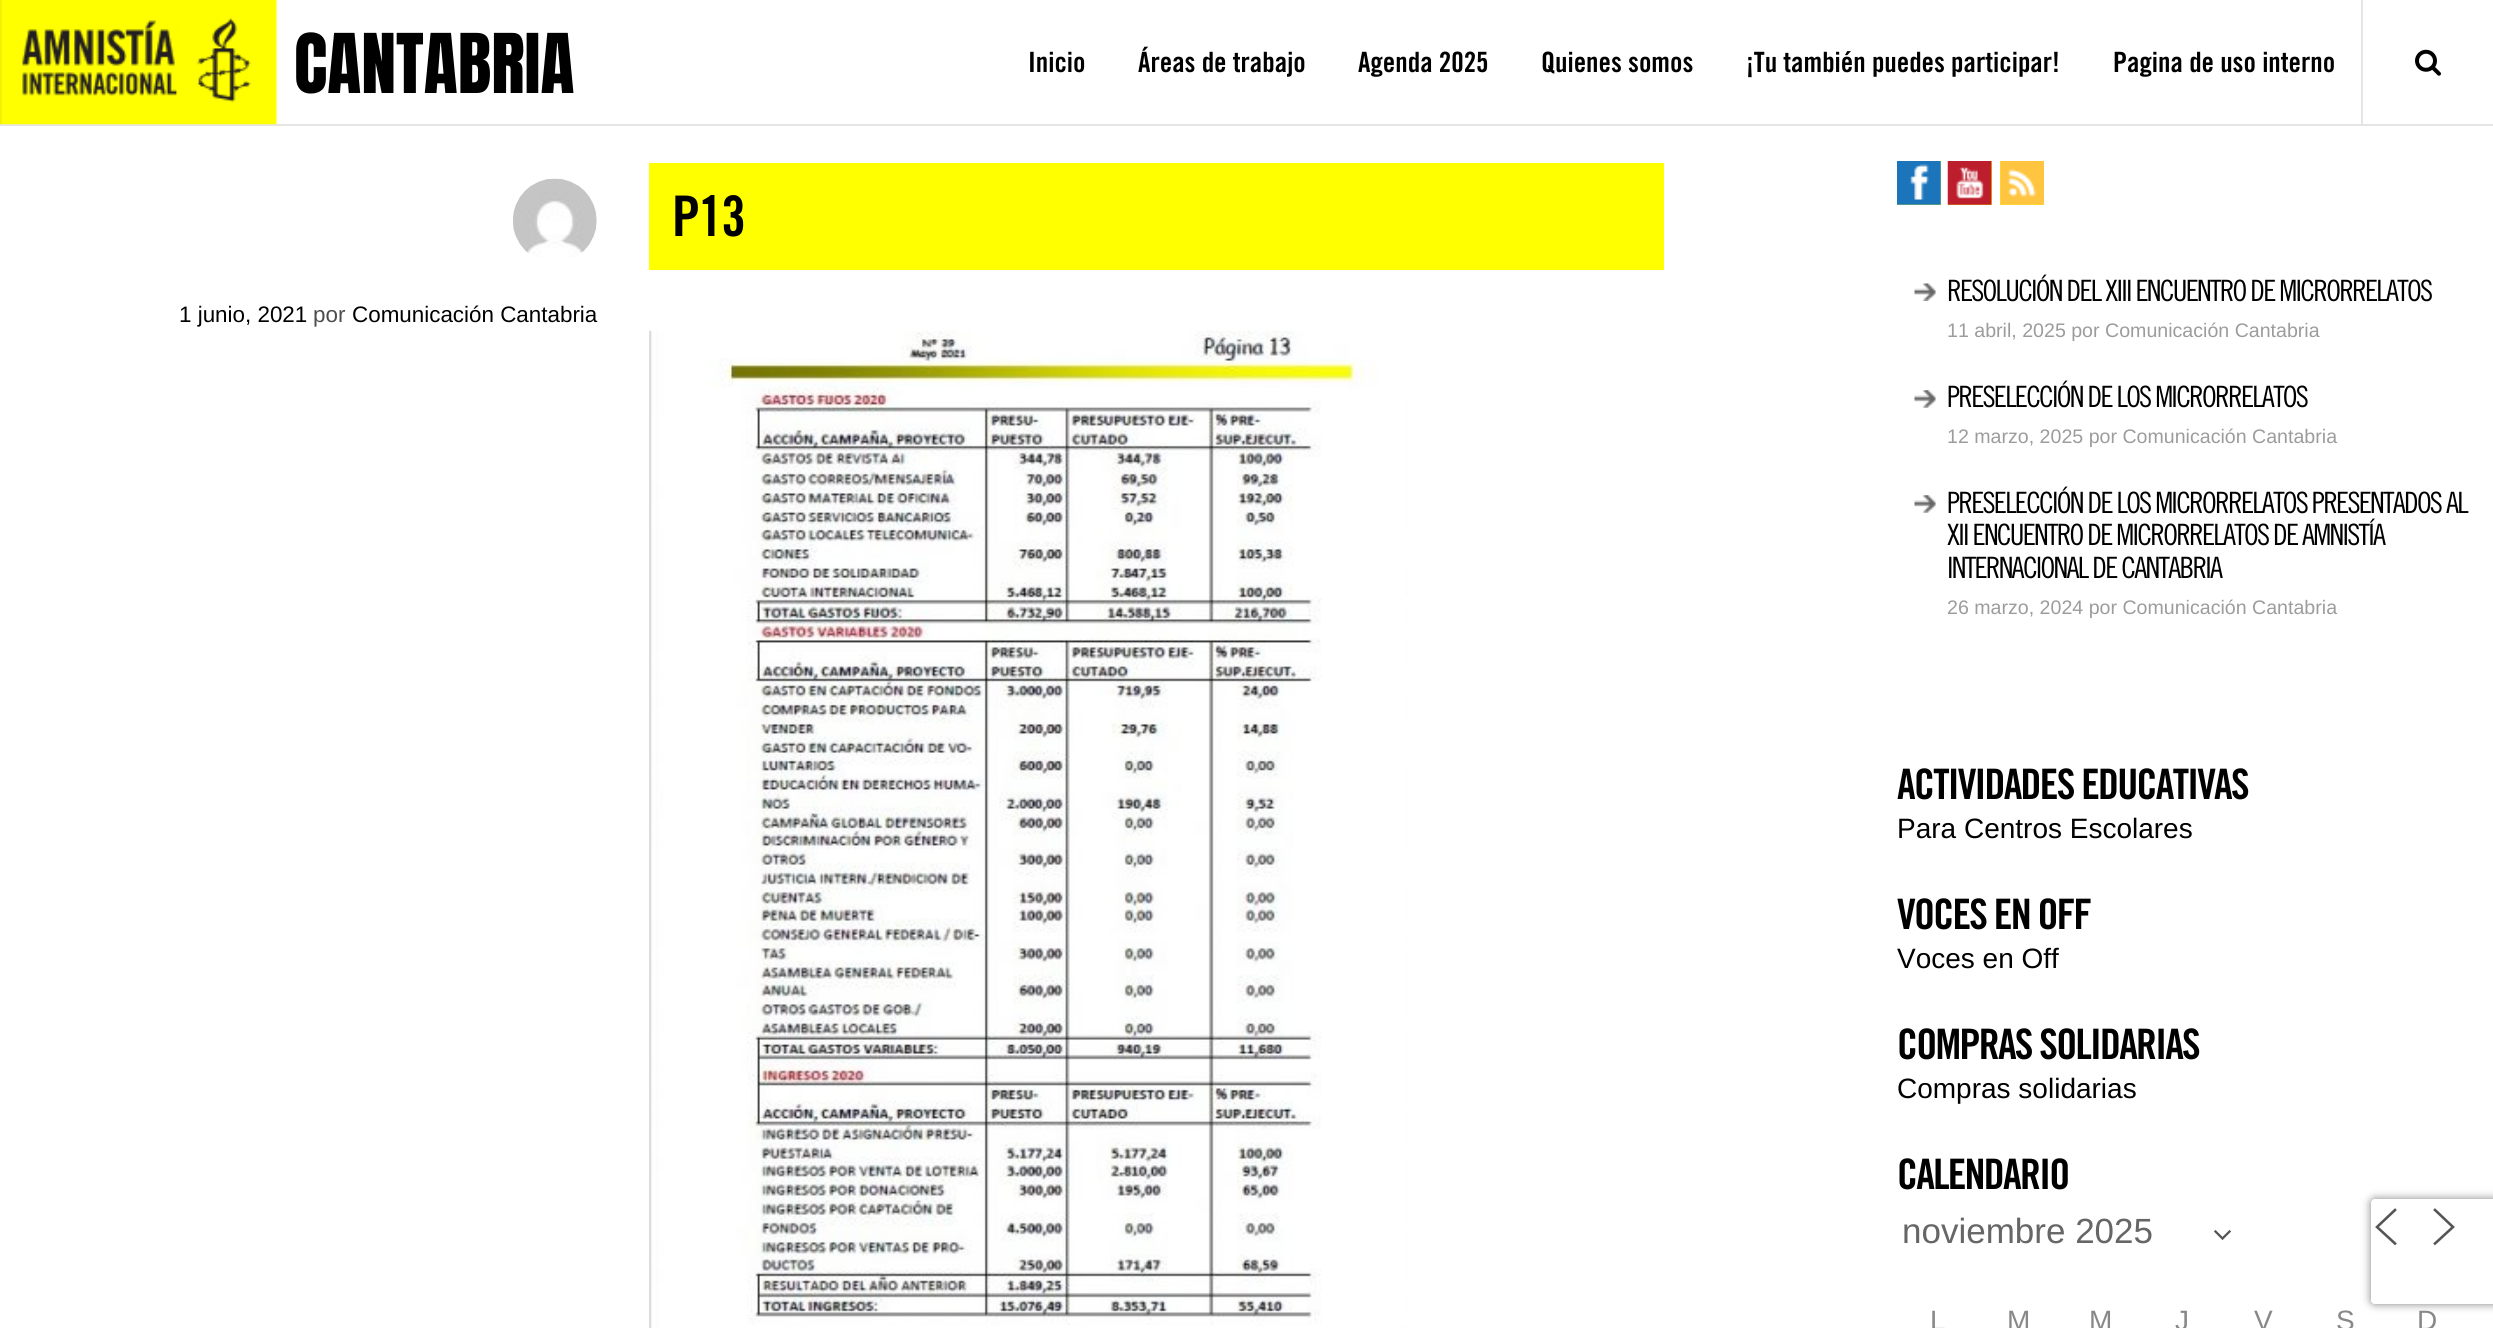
import math
import cairo



def draw_spaced(context, x, y, s, letter, word):
    context.move_to(x, y)
    for ch in s:
        context.show_text(ch)
        context.rel_move_to(letter + word * (ch == ' '), 0)


def rounded_rect(context, x, y, w, h, r):
    context.new_sub_path()
    for i, (u, v) in enumerate([(x + w - r, y + h - r), (x + r, y + h - r), (x + r, y + r), (x + w - r, y + r)]):
        context.arc(u, v, r, i * math.pi / 2, (i + 1) * math.pi / 2)
    context.close_path()


def draw_shadow(context, x, y, w, h, r, blur, alpha):
    context.push_group_with_content(cairo.Content.ALPHA)
    context.set_operator(cairo.Operator.SOURCE)
    for i in range(15, -16, -2):
        e = blur * i / 6
        if min(w, h) + 2 * e > 0:
            context.set_source_rgba(0, 0, 0, alpha * math.erfc((i - 1) / 8.5) / 2)
            rounded_rect(context, x - e, y - e, w + 2 * e, h + 2 * e, max(0, min(r + e + blur * .6, min(w, h) / 2 + e)))
            context.fill()
    context.mask(context.pop_group())


def draw_image(context, path, x, y, w, h):
    context.save()
    context.set_source_surface(cairo.ImageSurface.create_from_png(path), x, y)
    context.rectangle(x, y, w, h)
    context.fill()
    context.restore()


def draw(context):
    context.set_source_rgb(1, 1, 1)
    context.paint()
    context.set_source_rgb(229 / 255, 229 / 255, 229 / 255)
    context.rectangle(0, 124, 2493, 2)
    context.fill()
    draw_image(context, "images/1.png", 0, 0, 277, 125)
    context.rectangle(2361, 0, 2, 124)
    context.fill()
    draw_image(context, "images/2.png", 2415, 49, 26, 27)
    context.set_source_rgb(1, 1, 0)
    context.rectangle(649, 163, 1015, 107)
    context.fill()
    draw_image(context, "images/3.png", 513, 178, 84, 79)
    draw_image(context, "images/4.png", 649, 330, 760, 998)
    context.rectangle(1897, 161, 44, 44)
    context.fill()
    draw_image(context, "images/5.png", 1897, 161, 44, 44)
    context.rectangle(1948, 161, 44, 44)
    context.fill()
    draw_image(context, "images/6.png", 1947, 161, 45, 44)
    context.rectangle(2000, 161, 44, 44)
    context.fill()
    draw_image(context, "images/7.png", 2000, 161, 44, 44)
    draw_image(context, "images/8.png", 1914, 283, 22, 18)
    draw_image(context, "images/9.png", 1914, 390, 22, 18)
    draw_image(context, "images/9.png", 1914, 495, 22, 18)
    context.new_path()
    context.move_to(2215.5, 1231.5)
    context.line_to(2222.5, 1238.5)
    context.line_to(2229.5, 1231.5)
    context.set_source_rgb(85 / 255, 85 / 255, 85 / 255)
    context.set_line_width(2.3)
    context.set_line_cap(cairo.LineCap.SQUARE)
    context.stroke()
    context.new_path()
    context.move_to(2395, 1243.5)
    context.line_to(2377, 1227)
    context.line_to(2395, 1210)
    context.set_line_width(2.6)
    context.stroke()
    context.new_path()
    context.move_to(2435, 1243.5)
    context.line_to(2453, 1227)
    context.line_to(2435, 1210)
    context.stroke()
    context.save()
    context.set_fill_rule(cairo.FillRule.EVEN_ODD)
    context.new_path()
    context.move_to(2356, 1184)
    context.line_to(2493, 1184)
    context.line_to(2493, 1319)
    context.line_to(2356, 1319)
    context.close_path()
    context.move_to(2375, 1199)
    context.line_to(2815, 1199)
    context.curve_to(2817, 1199, 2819, 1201, 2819, 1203)
    context.line_to(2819, 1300)
    context.curve_to(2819, 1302, 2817, 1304, 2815, 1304)
    context.line_to(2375, 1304)
    context.curve_to(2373, 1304, 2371, 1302, 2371, 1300)
    context.line_to(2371, 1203)
    context.curve_to(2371, 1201, 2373, 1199, 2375, 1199)
    context.close_path()
    context.clip()
    context.set_source_rgb(128 / 255, 128 / 255, 128 / 255)
    draw_shadow(context, 2371, 1199, 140, 105, 4, 4.5, 1)
    context.restore()
    context.select_font_face("Anton")
    context.set_font_size(70)
    context.set_source_rgb(0, 0, 0)
    context.move_to(294, 93)
    context.show_text("CANTABRIA")
    context.select_font_face("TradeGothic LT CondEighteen", cairo.FontSlant.NORMAL, cairo.FontWeight.BOLD)
    context.set_font_size(28)
    context.move_to(1028, 72)
    context.show_text("Inicio")
    context.move_to(1138, 72)
    context.show_text("Áreas de trabajo")
    context.move_to(1358, 72)
    context.show_text("Agenda 2025")
    context.move_to(1541, 72)
    context.show_text("Quienes somos")
    context.move_to(1746, 72)
    context.show_text("¡Tu también puedes participar!")
    context.move_to(2113, 72)
    context.show_text("Pagina de uso interno")
    context.set_font_size(56)
    draw_spaced(context, 672, 236, "P13", -1.75, 0)
    context.select_font_face("Liberation Sans")
    context.set_font_size(22.4)
    context.move_to(179, 322)
    context.show_text("1 junio, 2021")
    context.set_source_rgb(77 / 255, 77 / 255, 77 / 255)
    context.move_to(313, 322)
    context.show_text("por")
    context.set_source_rgb(0, 0, 0)
    context.move_to(352, 322)
    context.show_text("Comunicación Cantabria")
    context.select_font_face("TradeGothic LT CondEighteen Medium")
    context.set_font_size(29.4)
    draw_spaced(context, 1947, 301, "RESOLUCIÓN DEL XIII ENCUENTRO DE MICRORRELATOS", -1.75, 0)
    context.select_font_face("Liberation Sans")
    context.set_font_size(19.6)
    context.set_source_rgb(156 / 255, 156 / 255, 157 / 255)
    context.move_to(1947, 337)
    context.show_text("11 abril, 2025 por Comunicación Cantabria")
    context.select_font_face("TradeGothic LT CondEighteen Medium")
    context.set_font_size(29.4)
    context.set_source_rgb(0, 0, 0)
    draw_spaced(context, 1947, 407, "PRESELECCIÓN DE LOS MICRORRELATOS", -1.75, 0)
    context.select_font_face("Liberation Sans")
    context.set_font_size(19.6)
    context.set_source_rgb(156 / 255, 156 / 255, 157 / 255)
    context.move_to(1947, 443)
    context.show_text("12 marzo, 2025 por Comunicación Cantabria")
    context.select_font_face("TradeGothic LT CondEighteen Medium")
    context.set_font_size(29.4)
    context.set_source_rgb(0, 0, 0)
    draw_spaced(context, 1947, 513, "PRESELECCIÓN DE LOS MICRORRELATOS PRESENTADOS AL", -1.75, 0)
    draw_spaced(context, 1947, 545, "XII ENCUENTRO DE MICRORRELATOS DE AMNISTÍA", -1.75, 0)
    draw_spaced(context, 1947, 578, "INTERNACIONAL DE CANTABRIA", -1.75, 0)
    context.select_font_face("Liberation Sans")
    context.set_font_size(19.6)
    context.set_source_rgb(156 / 255, 156 / 255, 157 / 255)
    context.move_to(1947, 614)
    context.show_text("26 marzo, 2024 por Comunicación Cantabria")
    context.select_font_face("TradeGothic LT CondEighteen", cairo.FontSlant.NORMAL, cairo.FontWeight.BOLD)
    context.set_font_size(42)
    context.set_source_rgb(0, 0, 0)
    draw_spaced(context, 1897, 799, "ACTIVIDADES EDUCATIVAS", -1.75, 0)
    context.select_font_face("Liberation Sans")
    context.set_font_size(28)
    context.move_to(1897, 838)
    context.show_text("Para Centros Escolares")
    context.select_font_face("TradeGothic LT CondEighteen", cairo.FontSlant.NORMAL, cairo.FontWeight.BOLD)
    context.set_font_size(42)
    draw_spaced(context, 1897, 929, "VOCES EN OFF", -1.75, 0)
    context.select_font_face("Liberation Sans")
    context.set_font_size(28)
    context.move_to(1897, 968)
    context.show_text("Voces en Off")
    context.select_font_face("TradeGothic LT CondEighteen", cairo.FontSlant.NORMAL, cairo.FontWeight.BOLD)
    context.set_font_size(42)
    draw_spaced(context, 1897, 1059, "COMPRAS SOLIDARIAS", -1.75, 0)
    context.select_font_face("Liberation Sans")
    context.set_font_size(28)
    context.move_to(1897, 1098)
    context.show_text("Compras solidarias")
    context.select_font_face("TradeGothic LT CondEighteen", cairo.FontSlant.NORMAL, cairo.FontWeight.BOLD)
    context.set_font_size(42)
    draw_spaced(context, 1897, 1189, "CALENDARIO", -1.75, 0)
    context.select_font_face("Liberation Sans")
    context.set_font_size(35)
    context.set_source_rgb(102 / 255, 102 / 255, 102 / 255)
    context.move_to(1902, 1243)
    context.show_text("noviembre 2025")
    context.set_font_size(28)
    context.set_source_rgb(136 / 255, 136 / 255, 136 / 255)
    context.move_to(1930, 1330)
    context.show_text("L")
    context.move_to(2007, 1330)
    context.show_text("M")
    context.move_to(2089, 1330)
    context.show_text("M")
    context.move_to(2175, 1330)
    context.show_text("J")
    context.move_to(2254, 1330)
    context.show_text("V")
    context.move_to(2336, 1330)
    context.show_text("S")
    context.move_to(2417, 1330)
    context.show_text("D")


surface = cairo.ImageSurface(cairo.Format.RGB24, 2493, 1328)
context = cairo.Context(surface)
options = cairo.FontOptions()
options.set_hint_metrics(cairo.HintMetrics.OFF)
options.set_hint_style(cairo.HintStyle.NONE)
context.set_font_options(options)
context.set_miter_limit(4)
draw(context)
surface.write_to_png("out.png")
